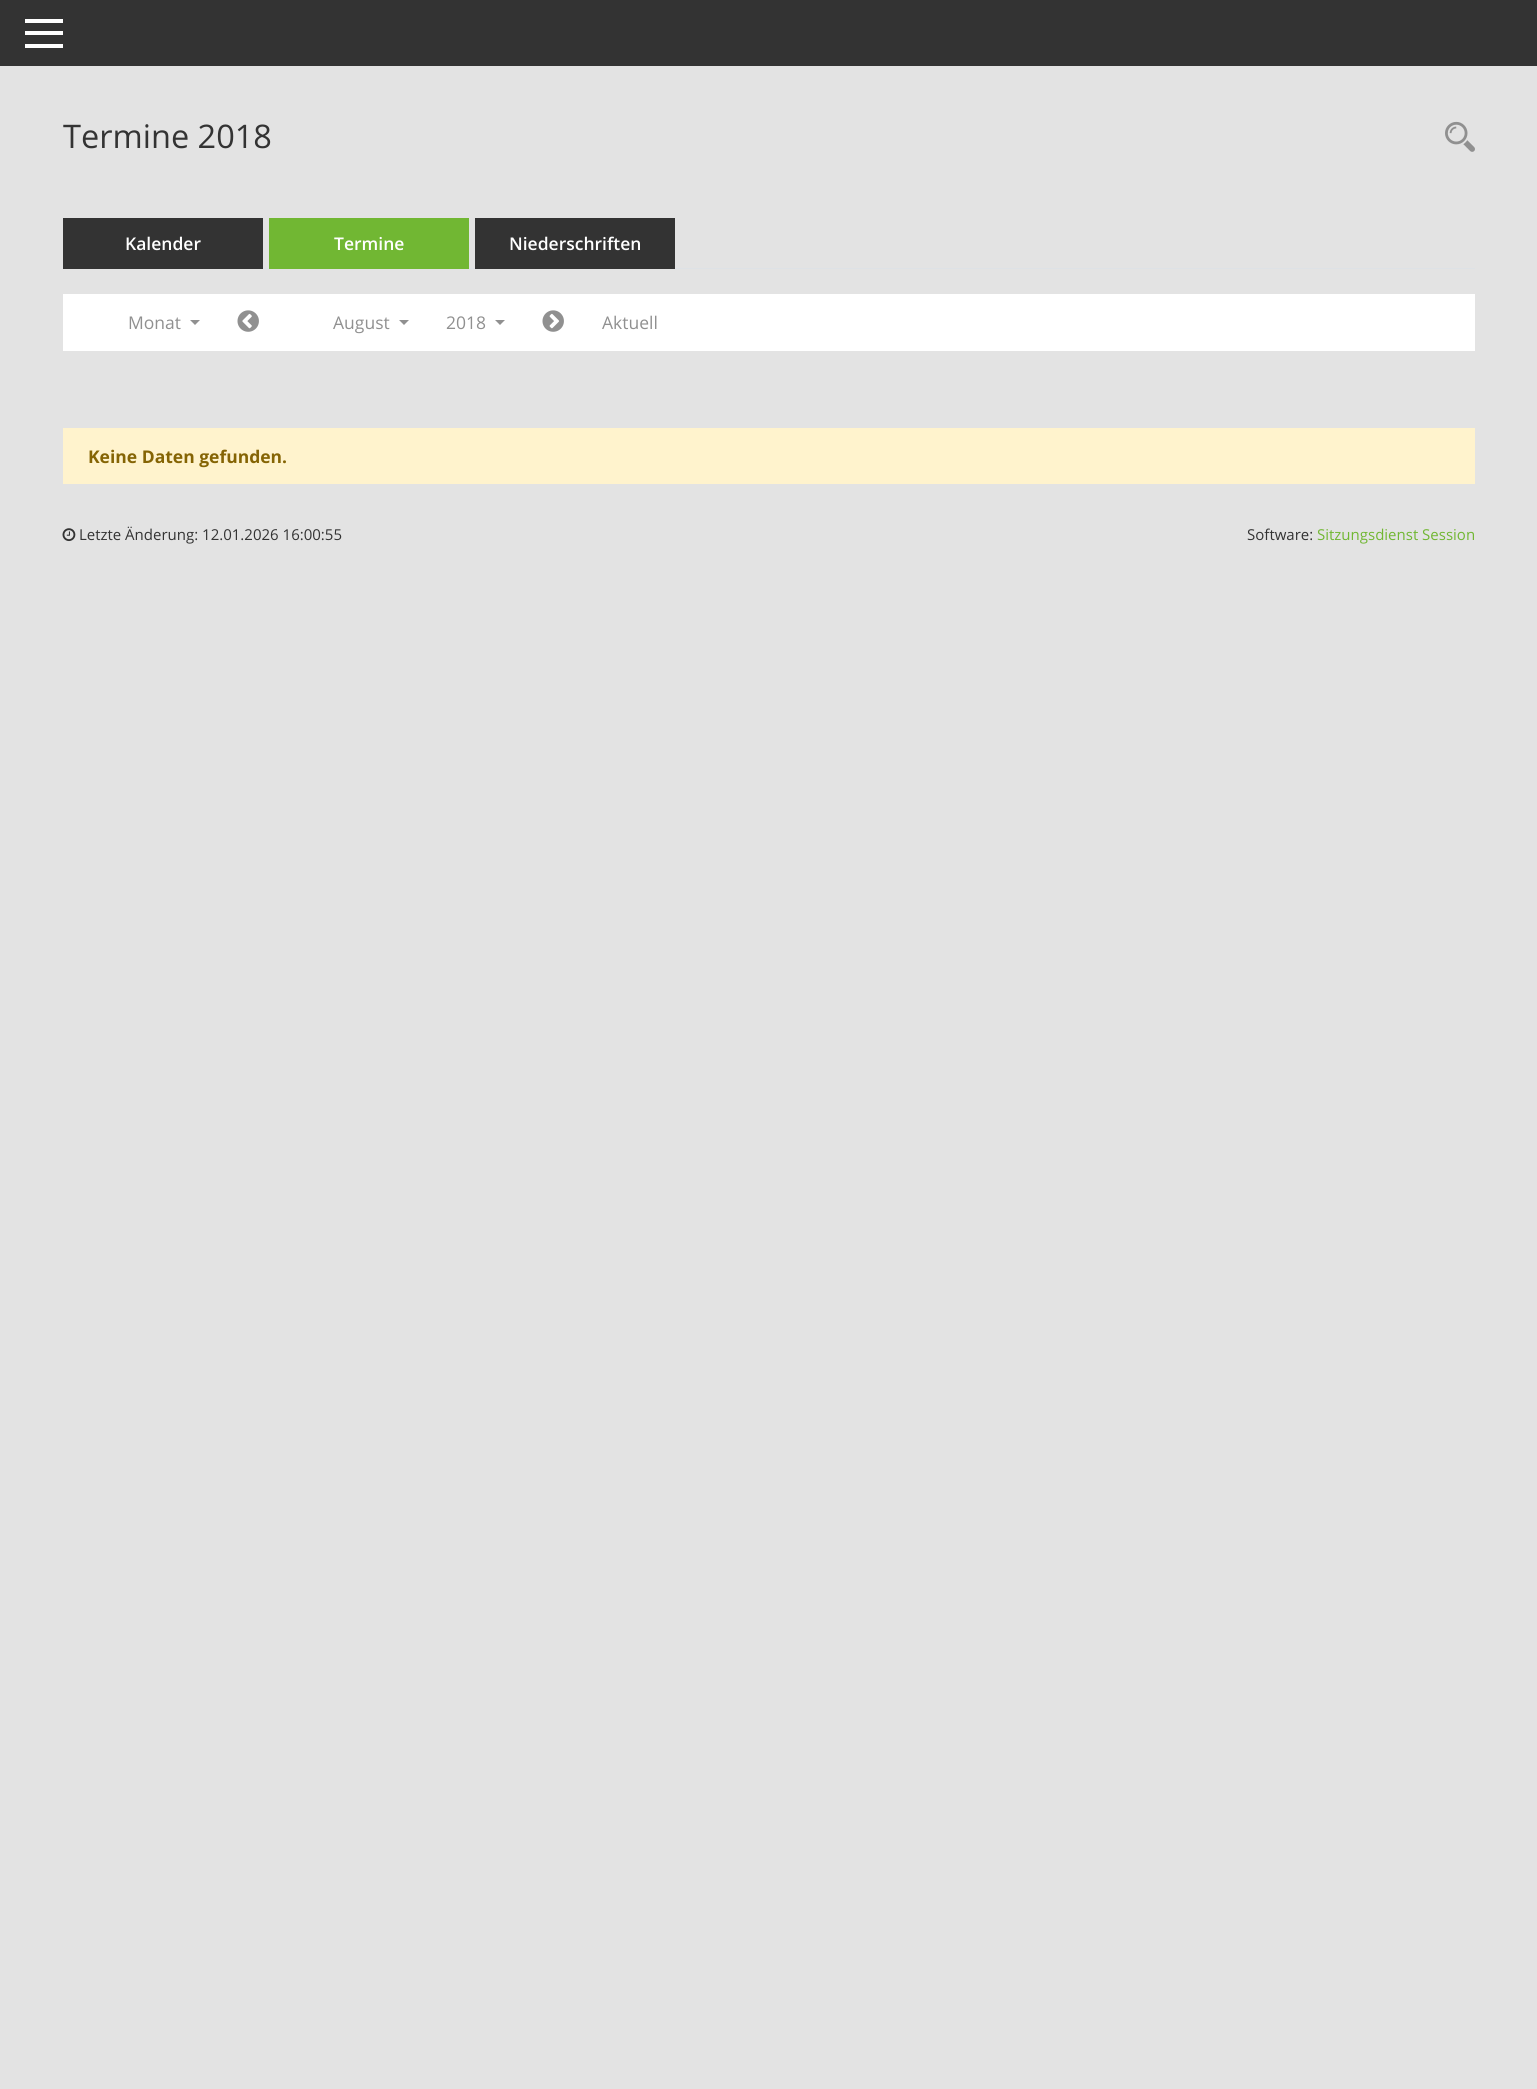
import math
import cairo



def draw_image(context, path, x, y, w, h):
    context.save()
    context.set_source_surface(cairo.ImageSurface.create_from_png(path), x, y)
    context.rectangle(x, y, w, h)
    context.fill()
    context.restore()


def draw(context):
    context.set_source_rgb(227 / 255, 227 / 255, 227 / 255)
    context.paint()
    context.set_source_rgb(51 / 255, 51 / 255, 51 / 255)
    context.rectangle(0, 0, 1537, 66)
    context.fill()
    context.set_source_rgb(1, 1, 1)
    context.rectangle(25, 19, 38, 4)
    context.fill()
    context.rectangle(25, 31, 38, 4)
    context.fill()
    context.rectangle(25, 44, 38, 4)
    context.fill()
    draw_image(context, "images/1.png", 1445, 121, 30, 31)
    context.set_source_rgb(222 / 255, 226 / 255, 230 / 255)
    context.rectangle(263, 268, 1212, 1)
    context.fill()
    context.set_source_rgb(51 / 255, 51 / 255, 51 / 255)
    context.rectangle(63, 218, 200, 51)
    context.fill()
    context.set_source_rgb(113 / 255, 183 / 255, 51 / 255)
    context.rectangle(269, 218, 200, 51)
    context.fill()
    context.set_source_rgb(51 / 255, 51 / 255, 51 / 255)
    context.rectangle(475, 218, 200, 51)
    context.fill()
    context.set_source_rgb(1, 1, 1)
    context.rectangle(63, 294, 1412, 57)
    context.fill()
    context.set_source_rgb(144 / 255, 144 / 255, 144 / 255)
    context.new_path()
    context.move_to(190, 320)
    context.line_to(200, 320)
    context.line_to(195, 325)
    context.close_path()
    context.fill()
    draw_image(context, "images/2.png", 237, 310, 22, 22)
    context.new_path()
    context.move_to(399, 320)
    context.line_to(409, 320)
    context.line_to(404, 325)
    context.close_path()
    context.fill()
    context.new_path()
    context.move_to(495, 320)
    context.line_to(505, 320)
    context.line_to(500, 325)
    context.close_path()
    context.fill()
    draw_image(context, "images/3.png", 542, 310, 22, 22)
    context.set_source_rgb(1, 243 / 255, 205 / 255)
    context.rectangle(63, 428, 1412, 56)
    context.fill()
    draw_image(context, "images/4.png", 62, 528, 14, 14)
    context.select_font_face("Open Sans")
    context.set_font_size(32.5)
    context.set_source_rgb(51 / 255, 51 / 255, 51 / 255)
    context.move_to(63, 148)
    context.show_text("Termine 2018")
    context.select_font_face("Open Sans SemiBold")
    context.set_font_size(17.5)
    context.set_source_rgb(1, 1, 1)
    context.move_to(125, 250)
    context.show_text("Kalender")
    context.move_to(334, 250)
    context.show_text("Termine")
    context.move_to(509, 250)
    context.show_text("Niederschriften")
    context.select_font_face("Open Sans")
    context.set_source_rgb(144 / 255, 144 / 255, 144 / 255)
    context.move_to(128, 329)
    context.show_text("Monat")
    context.move_to(333, 329)
    context.show_text("August")
    context.move_to(446, 329)
    context.show_text("2018")
    context.move_to(602, 329)
    context.show_text("Aktuell")
    context.select_font_face("Open Sans", cairo.FontSlant.NORMAL, cairo.FontWeight.BOLD)
    context.set_source_rgb(133 / 255, 100 / 255, 4 / 255)
    context.move_to(88, 463)
    context.show_text("Keine Daten gefunden.")
    context.select_font_face("Open Sans")
    context.set_font_size(15)
    context.set_source_rgb(51 / 255, 51 / 255, 51 / 255)
    context.move_to(79, 540)
    context.show_text("Letzte Änderung: 12.01.2026 16:00:55")
    context.move_to(1247, 540)
    context.show_text("Software:")
    context.set_source_rgb(113 / 255, 183 / 255, 51 / 255)
    context.move_to(1317, 540)
    context.show_text("Sitzungsdienst Session")


surface = cairo.ImageSurface(cairo.Format.RGB24, 1537, 2089)
context = cairo.Context(surface)
options = cairo.FontOptions()
options.set_hint_metrics(cairo.HintMetrics.OFF)
options.set_hint_style(cairo.HintStyle.NONE)
context.set_font_options(options)
context.set_miter_limit(4)
draw(context)
surface.write_to_png("out.png")
